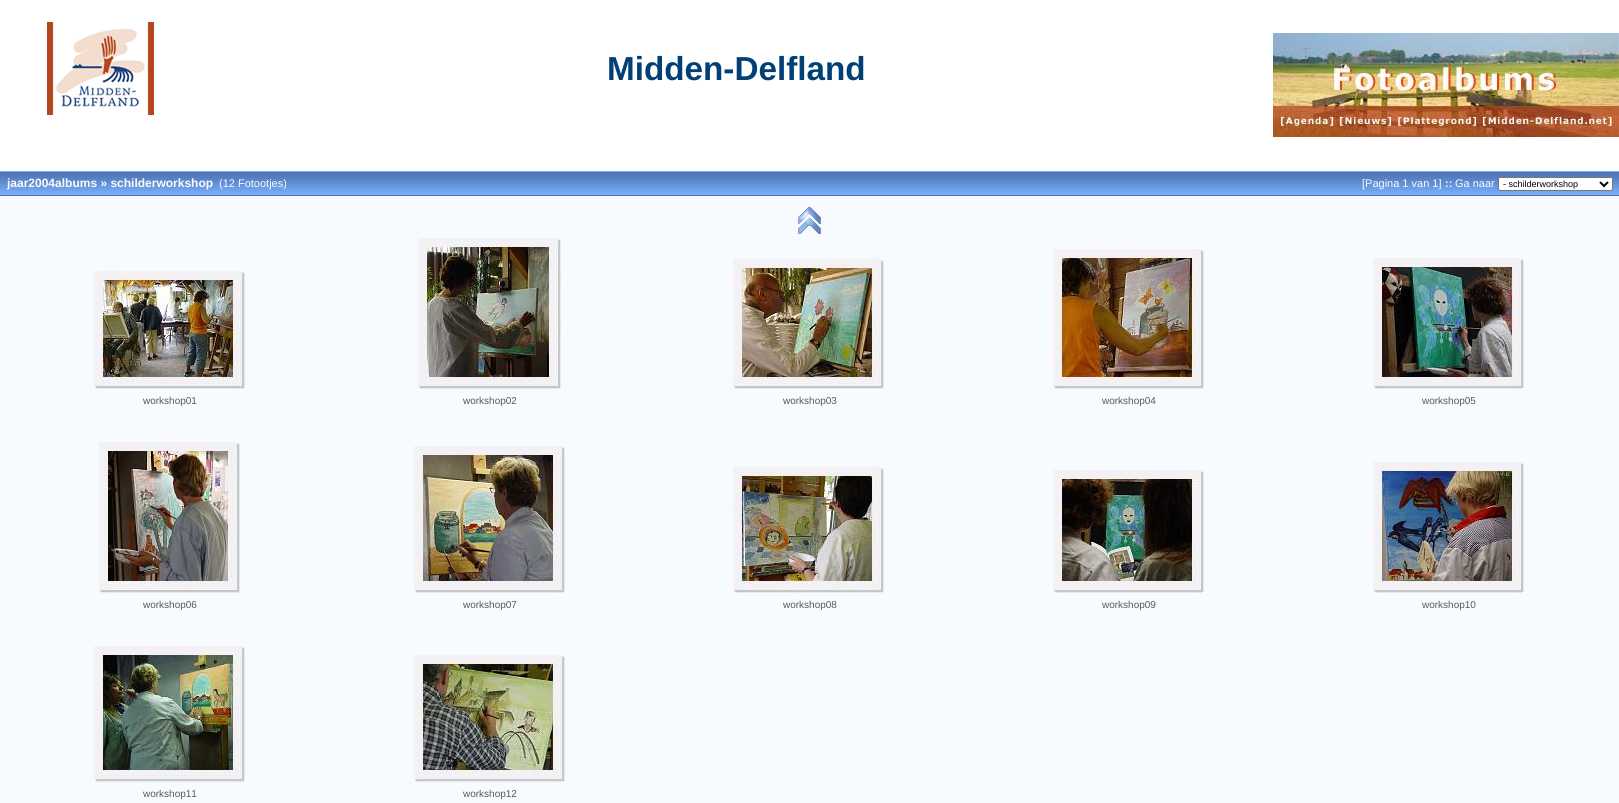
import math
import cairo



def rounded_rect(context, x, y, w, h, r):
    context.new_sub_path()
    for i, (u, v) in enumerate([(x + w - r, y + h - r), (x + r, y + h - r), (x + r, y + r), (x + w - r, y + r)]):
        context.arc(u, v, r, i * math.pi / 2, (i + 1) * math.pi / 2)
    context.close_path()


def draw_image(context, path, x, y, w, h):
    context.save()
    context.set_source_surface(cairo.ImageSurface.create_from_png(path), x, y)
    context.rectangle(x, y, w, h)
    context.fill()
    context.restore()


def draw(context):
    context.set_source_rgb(1, 1, 1)
    context.paint()
    draw_image(context, "images/1.png", 47, 22, 107, 93)
    draw_image(context, "images/2.png", 1273, 33, 346, 104)
    draw_image(context, "images/3.png", 0, 171, 1619, 25)
    context.set_source_rgb(1, 1, 1)
    rounded_rect(context, 1498.5, 177.5, 114, 13, 1.5)
    context.fill_preserve()
    context.set_source_rgb(118 / 255, 118 / 255, 118 / 255)
    context.set_line_width(1)
    context.stroke()
    context.new_path()
    context.move_to(1600, 182)
    context.line_to(1604, 186)
    context.line_to(1608, 182)
    context.set_source_rgb(0, 0, 0)
    context.set_line_width(2)
    context.stroke()
    context.set_source_rgb(247 / 255, 251 / 255, 1)
    context.rectangle(0, 196, 1619, 607)
    context.fill()
    draw_image(context, "images/4.png", 798, 207, 23, 27)
    draw_image(context, "images/5.png", 94, 271, 152, 119)
    draw_image(context, "images/6.png", 418, 238, 144, 152)
    draw_image(context, "images/7.png", 733, 259, 152, 130)
    draw_image(context, "images/8.png", 1053, 249, 152, 141)
    draw_image(context, "images/9.png", 1373, 258, 152, 132)
    draw_image(context, "images/10.png", 99, 442, 142, 152)
    draw_image(context, "images/11.png", 414, 446, 152, 148)
    draw_image(context, "images/12.png", 733, 467, 152, 127)
    draw_image(context, "images/13.png", 1053, 470, 152, 124)
    draw_image(context, "images/14.png", 1373, 462, 152, 132)
    draw_image(context, "images/15.png", 94, 646, 152, 136)
    draw_image(context, "images/16.png", 414, 655, 152, 128)
    context.select_font_face("Liberation Sans", cairo.FontSlant.NORMAL, cairo.FontWeight.BOLD)
    context.set_font_size(33.25)
    context.set_source_rgb(0, 64 / 255, 118 / 255)
    context.move_to(607, 80)
    context.show_text("Midden-Delfland")
    context.set_font_size(12)
    context.set_source_rgb(250 / 255, 250 / 255, 250 / 255)
    context.move_to(7, 187)
    context.show_text("jaar2004albums » schilderworkshop")
    context.select_font_face("Liberation Sans")
    context.set_font_size(11)
    context.move_to(219, 187)
    context.show_text("(12 Fotootjes)")
    context.move_to(1362, 187)
    context.show_text("[Pagina 1 van 1]")
    context.select_font_face("Liberation Sans", cairo.FontSlant.NORMAL, cairo.FontWeight.BOLD)
    context.move_to(1445, 187)
    context.show_text("::")
    context.select_font_face("Liberation Sans")
    context.move_to(1455, 187)
    context.show_text("Ga naar")
    context.set_font_size(9)
    context.set_source_rgb(0, 0, 0)
    context.move_to(1503, 187)
    context.show_text("- schilderworkshop")
    context.set_font_size(10)
    context.set_source_rgb(88 / 255, 88 / 255, 88 / 255)
    context.move_to(143, 404)
    context.show_text("workshop01")
    context.move_to(463, 404)
    context.show_text("workshop02")
    context.move_to(783, 404)
    context.show_text("workshop03")
    context.move_to(1102, 404)
    context.show_text("workshop04")
    context.move_to(1422, 404)
    context.show_text("workshop05")
    context.move_to(143, 608)
    context.show_text("workshop06")
    context.move_to(463, 608)
    context.show_text("workshop07")
    context.move_to(783, 608)
    context.show_text("workshop08")
    context.move_to(1102, 608)
    context.show_text("workshop09")
    context.move_to(1422, 608)
    context.show_text("workshop10")
    context.move_to(143, 797)
    context.show_text("workshop11")
    context.move_to(463, 797)
    context.show_text("workshop12")


surface = cairo.ImageSurface(cairo.Format.RGB24, 1619, 803)
context = cairo.Context(surface)
options = cairo.FontOptions()
options.set_hint_metrics(cairo.HintMetrics.OFF)
options.set_hint_style(cairo.HintStyle.NONE)
context.set_font_options(options)
context.set_miter_limit(4)
draw(context)
surface.write_to_png("out.png")
